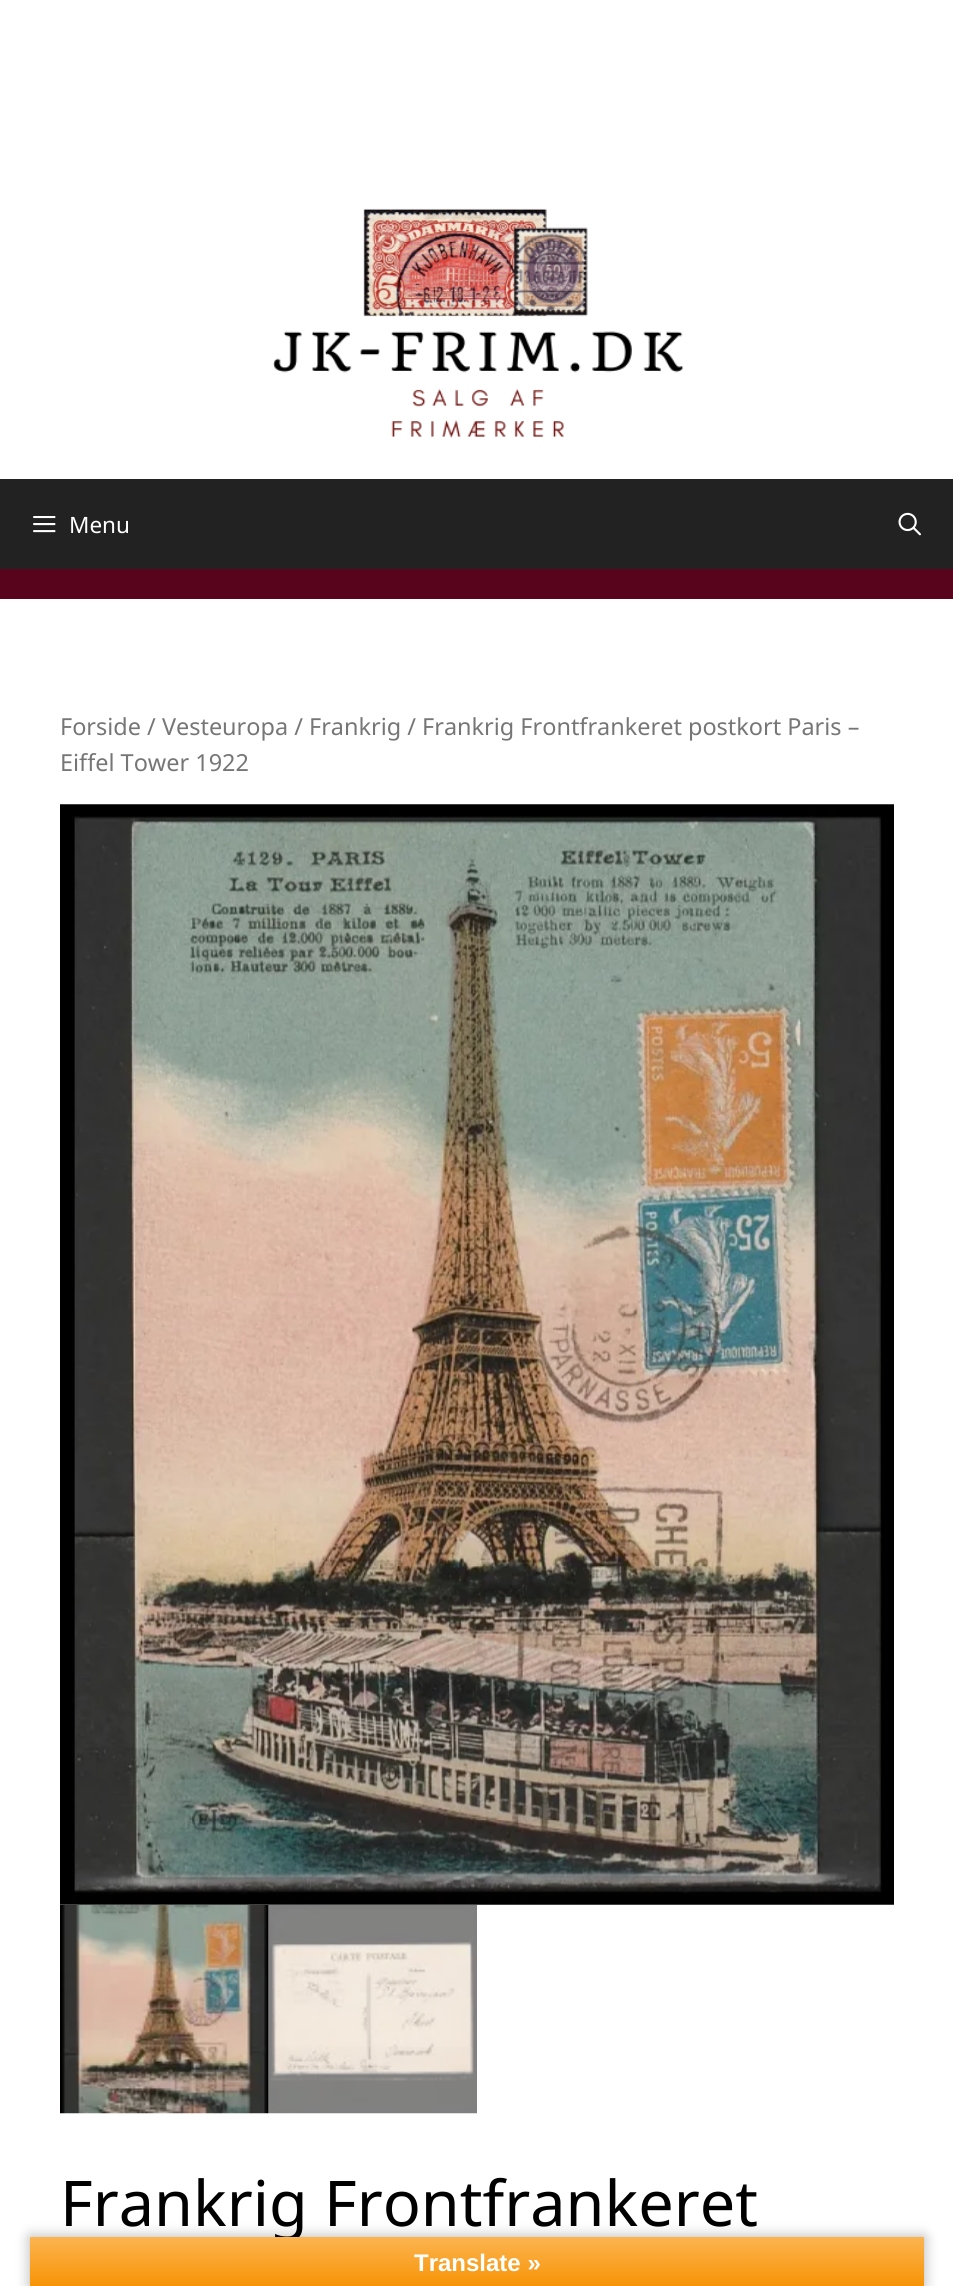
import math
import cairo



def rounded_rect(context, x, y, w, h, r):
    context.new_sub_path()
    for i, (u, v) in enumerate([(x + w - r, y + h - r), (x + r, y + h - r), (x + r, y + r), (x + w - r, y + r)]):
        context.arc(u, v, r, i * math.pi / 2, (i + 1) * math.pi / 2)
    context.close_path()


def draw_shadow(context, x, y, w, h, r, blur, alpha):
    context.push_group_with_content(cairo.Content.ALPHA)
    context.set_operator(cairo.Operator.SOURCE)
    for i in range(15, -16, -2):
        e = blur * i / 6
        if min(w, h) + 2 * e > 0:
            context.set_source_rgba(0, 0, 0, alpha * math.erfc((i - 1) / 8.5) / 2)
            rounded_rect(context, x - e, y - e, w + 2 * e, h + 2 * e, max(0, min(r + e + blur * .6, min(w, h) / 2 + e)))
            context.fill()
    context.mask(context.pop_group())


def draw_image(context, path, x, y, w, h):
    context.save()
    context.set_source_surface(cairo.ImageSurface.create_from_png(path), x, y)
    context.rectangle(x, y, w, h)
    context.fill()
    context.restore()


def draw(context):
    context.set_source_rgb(89 / 255, 4 / 255, 29 / 255)
    context.paint()
    context.set_source_rgb(1, 1, 1)
    context.rectangle(0, 0, 953, 479)
    context.fill()
    draw_image(context, "images/1.png", 273, 208, 411, 230)
    context.set_source_rgb(34 / 255, 34 / 255, 34 / 255)
    context.rectangle(0, 479, 953, 90)
    context.fill()
    draw_image(context, "images/2.png", 33, 516, 23, 17)
    draw_image(context, "images/3.png", 898, 512, 23, 24)
    context.set_source_rgb(1, 1, 1)
    context.rectangle(0, 599, 953, 1687)
    context.fill()
    draw_image(context, "images/4.png", 60, 804, 834, 1101)
    draw_image(context, "images/5.png", 60, 1905, 209, 209)
    draw_image(context, "images/6.png", 268, 1905, 209, 209)
    context.set_source_rgb(0, 0, 0)
    draw_shadow(context, 30, 2237, 894, 49, 0, 7, 0.3)
    context.select_font_face("Noto Sans")
    context.set_font_size(22.5)
    context.set_source_rgb(1, 1, 1)
    context.move_to(69, 533)
    context.show_text("Menu")
    context.set_font_size(23.45)
    context.set_source_rgb(118 / 255, 118 / 255, 118 / 255)
    context.move_to(60, 735)
    context.show_text("Forside / Vesteuropa / Frankrig / Frankrig Frontfrankeret postkort Paris –")
    context.move_to(60, 771)
    context.show_text("Eiffel Tower 1922")
    context.set_font_size(63)
    context.set_source_rgb(0, 0, 0)
    context.move_to(60, 2226)
    context.show_text("Frankrig Frontfrankeret")
    gradient = cairo.LinearGradient(477, 2237, 477, 2286)
    gradient.add_color_stop_rgba(0, 251 / 255, 180 / 255, 80 / 255, 1)
    gradient.add_color_stop_rgba(1, 248 / 255, 148 / 255, 6 / 255, 1)
    context.set_source(gradient)
    context.rectangle(30, 2237, 894, 49)
    context.fill()
    context.select_font_face("Liberation Sans", cairo.FontSlant.NORMAL, cairo.FontWeight.BOLD)
    context.set_font_size(24)
    context.set_source_rgb(1, 1, 1)
    context.move_to(414, 2271)
    context.show_text("Translate »")


surface = cairo.ImageSurface(cairo.Format.RGB24, 953, 2286)
context = cairo.Context(surface)
options = cairo.FontOptions()
options.set_hint_metrics(cairo.HintMetrics.OFF)
options.set_hint_style(cairo.HintStyle.NONE)
context.set_font_options(options)
context.set_miter_limit(4)
draw(context)
surface.write_to_png("out.png")
